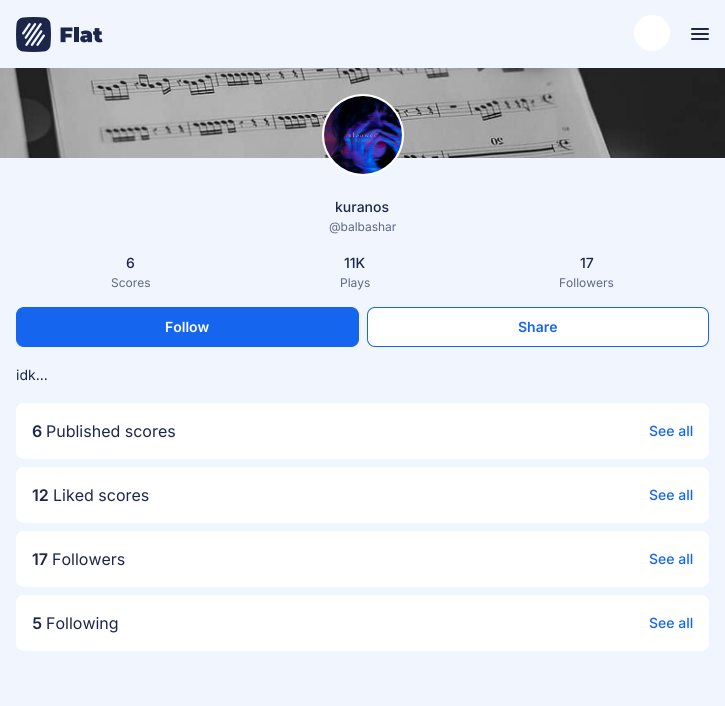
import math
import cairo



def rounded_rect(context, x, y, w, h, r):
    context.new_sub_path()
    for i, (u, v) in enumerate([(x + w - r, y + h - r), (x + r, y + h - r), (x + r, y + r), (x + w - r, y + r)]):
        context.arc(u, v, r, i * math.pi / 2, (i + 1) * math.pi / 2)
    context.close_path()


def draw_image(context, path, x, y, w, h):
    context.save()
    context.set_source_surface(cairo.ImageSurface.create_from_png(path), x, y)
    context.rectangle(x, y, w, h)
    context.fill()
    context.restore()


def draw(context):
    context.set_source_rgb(241 / 255, 246 / 255, 254 / 255)
    context.paint()
    draw_image(context, "images/1.png", 16, 17, 87, 35)
    context.set_source_rgb(1, 1, 1)
    context.arc(652, 33, 18, 0, 2 * math.pi)
    context.fill()
    context.set_source_rgb(28 / 255, 38 / 255, 74 / 255)
    rounded_rect(context, 691, 28, 18, 2, 1)
    context.fill()
    rounded_rect(context, 691, 33, 18, 2, 1)
    context.fill()
    rounded_rect(context, 691, 38, 18, 2, 1)
    context.fill()
    draw_image(context, "images/2.png", 0, 68, 725, 90)
    context.set_source_rgb(1, 1, 1)
    context.arc(363, 135, 40, 0, 2 * math.pi)
    context.fill_preserve()
    context.stroke()
    draw_image(context, "images/3.png", 324, 96, 78, 78)
    context.set_source_rgb(21 / 255, 101 / 255, 239 / 255)
    rounded_rect(context, 16.5, 307.5, 342, 39, 7.5)
    context.fill_preserve()
    context.set_line_width(1)
    context.stroke()
    context.set_source_rgb(1, 1, 1)
    rounded_rect(context, 367.5, 307.5, 341, 39, 7.5)
    context.fill_preserve()
    context.set_source_rgb(21 / 255, 101 / 255, 239 / 255)
    context.stroke()
    context.set_source_rgb(1, 1, 1)
    rounded_rect(context, 16, 403, 693, 56, 8)
    context.fill()
    rounded_rect(context, 16, 467, 693, 56, 8)
    context.fill()
    rounded_rect(context, 16, 531, 693, 56, 8)
    context.fill()
    rounded_rect(context, 16, 595, 693, 56, 8)
    context.fill()
    context.select_font_face("Inter Medium")
    context.set_font_size(14)
    context.set_source_rgb(28 / 255, 38 / 255, 74 / 255)
    context.move_to(335, 212)
    context.show_text("kuranos")
    context.select_font_face("Inter")
    context.set_font_size(12)
    context.set_source_rgb(95 / 255, 103 / 255, 129 / 255)
    context.move_to(329, 231)
    context.show_text("@balbashar")
    context.select_font_face("Inter Medium")
    context.set_font_size(14)
    context.set_source_rgb(28 / 255, 38 / 255, 74 / 255)
    context.move_to(126, 268)
    context.show_text("6")
    context.select_font_face("Inter")
    context.set_font_size(12)
    context.set_source_rgb(95 / 255, 103 / 255, 129 / 255)
    context.move_to(111, 287)
    context.show_text("Scores")
    context.select_font_face("Inter Medium")
    context.set_font_size(14)
    context.set_source_rgb(28 / 255, 38 / 255, 74 / 255)
    context.move_to(344, 268)
    context.show_text("11K")
    context.select_font_face("Inter")
    context.set_font_size(12)
    context.set_source_rgb(95 / 255, 103 / 255, 129 / 255)
    context.move_to(340, 287)
    context.show_text("Plays")
    context.select_font_face("Inter Medium")
    context.set_font_size(14)
    context.set_source_rgb(28 / 255, 38 / 255, 74 / 255)
    context.move_to(580, 268)
    context.show_text("17")
    context.select_font_face("Inter")
    context.set_font_size(12)
    context.set_source_rgb(95 / 255, 103 / 255, 129 / 255)
    context.move_to(559, 287)
    context.show_text("Followers")
    context.select_font_face("Inter SemiBold")
    context.set_font_size(14)
    context.set_source_rgb(1, 1, 1)
    context.move_to(165, 332)
    context.show_text("Follow")
    context.set_source_rgb(21 / 255, 101 / 255, 239 / 255)
    context.move_to(518, 332)
    context.show_text("Share")
    context.select_font_face("Inter")
    context.set_source_rgb(28 / 255, 38 / 255, 74 / 255)
    context.move_to(16, 380)
    context.show_text("idk...")
    context.select_font_face("Inter SemiBold")
    context.set_font_size(16)
    context.move_to(32, 437)
    context.show_text("6")
    context.select_font_face("Inter")
    context.move_to(46, 437)
    context.show_text("Published scores")
    context.select_font_face("Inter Medium")
    context.set_font_size(14)
    context.set_source_rgb(21 / 255, 101 / 255, 239 / 255)
    context.move_to(649, 436)
    context.show_text("See all")
    context.select_font_face("Inter SemiBold")
    context.set_font_size(16)
    context.set_source_rgb(28 / 255, 38 / 255, 74 / 255)
    context.move_to(32, 501)
    context.show_text("12")
    context.select_font_face("Inter")
    context.move_to(53, 501)
    context.show_text("Liked scores")
    context.select_font_face("Inter Medium")
    context.set_font_size(14)
    context.set_source_rgb(21 / 255, 101 / 255, 239 / 255)
    context.move_to(649, 500)
    context.show_text("See all")
    context.select_font_face("Inter SemiBold")
    context.set_font_size(16)
    context.set_source_rgb(28 / 255, 38 / 255, 74 / 255)
    context.move_to(32, 565)
    context.show_text("17")
    context.select_font_face("Inter")
    context.move_to(52, 565)
    context.show_text("Followers")
    context.select_font_face("Inter Medium")
    context.set_font_size(14)
    context.set_source_rgb(21 / 255, 101 / 255, 239 / 255)
    context.move_to(649, 564)
    context.show_text("See all")
    context.select_font_face("Inter SemiBold")
    context.set_font_size(16)
    context.set_source_rgb(28 / 255, 38 / 255, 74 / 255)
    context.move_to(32, 629)
    context.show_text("5")
    context.select_font_face("Inter")
    context.move_to(46, 629)
    context.show_text("Following")
    context.select_font_face("Inter Medium")
    context.set_font_size(14)
    context.set_source_rgb(21 / 255, 101 / 255, 239 / 255)
    context.move_to(649, 628)
    context.show_text("See all")


surface = cairo.ImageSurface(cairo.Format.RGB24, 725, 706)
context = cairo.Context(surface)
options = cairo.FontOptions()
options.set_hint_metrics(cairo.HintMetrics.OFF)
options.set_hint_style(cairo.HintStyle.NONE)
context.set_font_options(options)
context.set_miter_limit(4)
draw(context)
surface.write_to_png("out.png")
